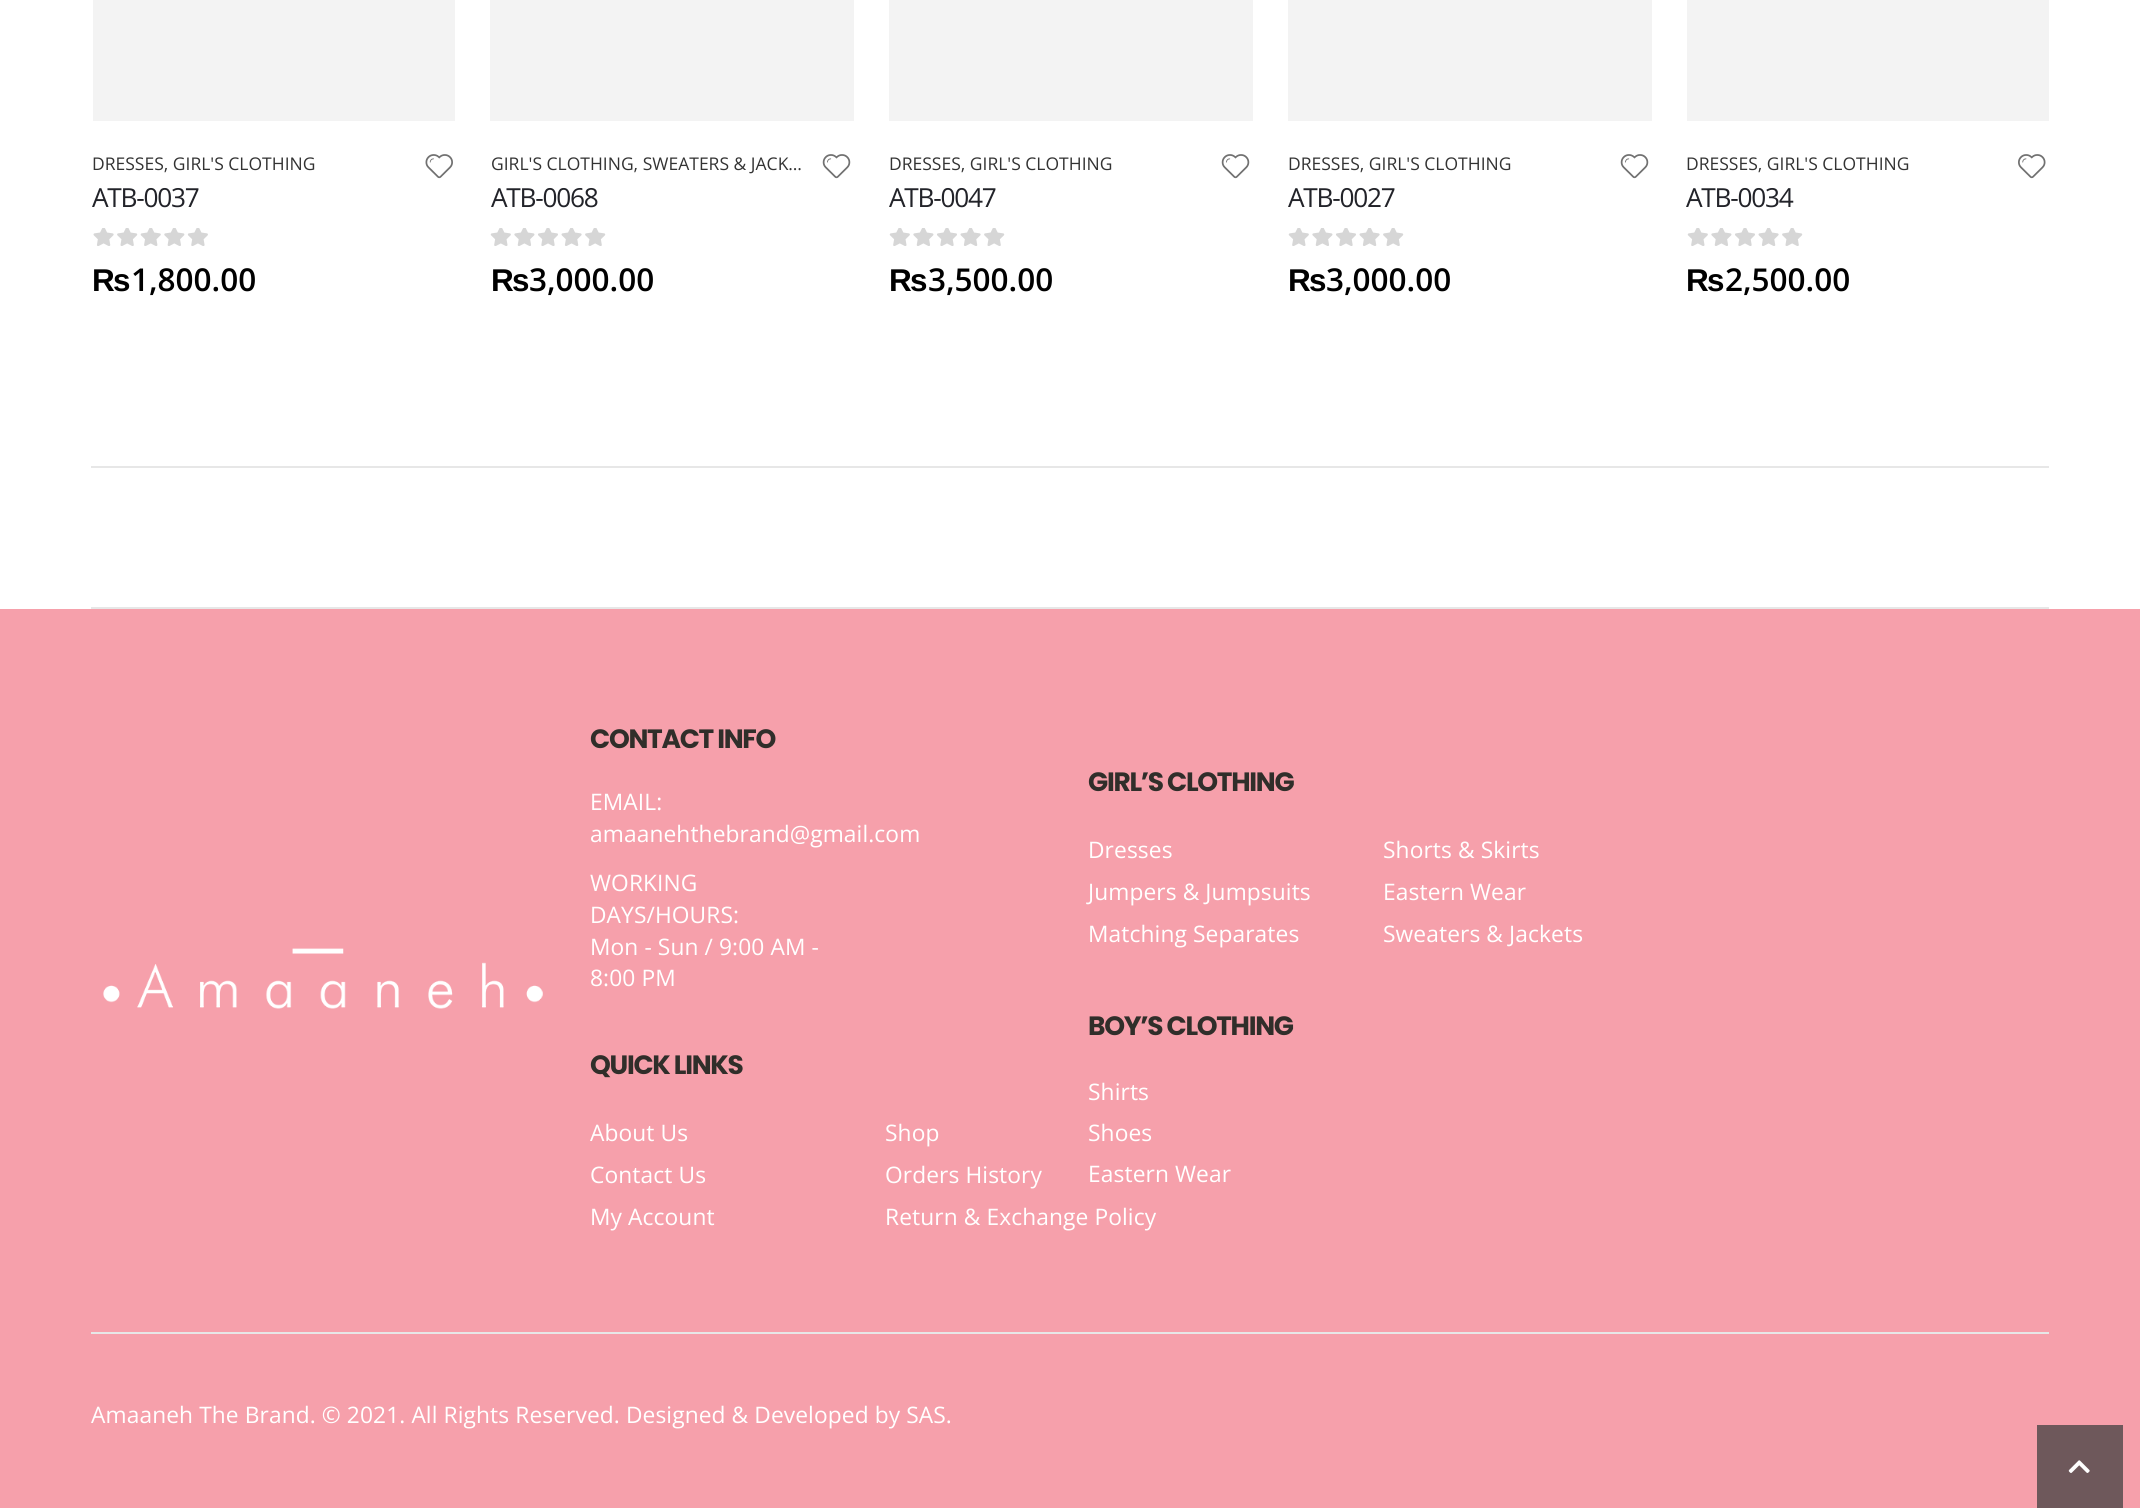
import math
import cairo



def draw_spaced(context, x, y, s, letter, word):
    context.move_to(x, y)
    for ch in s:
        context.show_text(ch)
        context.rel_move_to(letter + word * (ch == ' '), 0)


def draw_image(context, path, x, y, w, h):
    context.save()
    context.set_source_surface(cairo.ImageSurface.create_from_png(path), x, y)
    context.rectangle(x, y, w, h)
    context.fill()
    context.restore()


def draw(context):
    context.set_source_rgb(1, 1, 1)
    context.paint()
    context.set_source_rgb(243 / 255, 243 / 255, 243 / 255)
    context.rectangle(93, 0, 362, 121)
    context.fill()
    draw_image(context, "images/1.png", 425, 154, 28, 25)
    draw_image(context, "images/2.png", 93, 228, 115, 18)
    context.rectangle(490, 0, 364, 121)
    context.fill()
    draw_image(context, "images/3.png", 822, 154, 29, 25)
    draw_image(context, "images/4.png", 490, 228, 116, 18)
    context.rectangle(889, 0, 364, 121)
    context.fill()
    draw_image(context, "images/3.png", 1221, 154, 29, 25)
    draw_image(context, "images/4.png", 889, 228, 116, 18)
    context.rectangle(1288, 0, 364, 121)
    context.fill()
    draw_image(context, "images/3.png", 1620, 154, 29, 25)
    draw_image(context, "images/4.png", 1288, 228, 116, 18)
    context.rectangle(1687, 0, 362, 121)
    context.fill()
    draw_image(context, "images/5.png", 2018, 154, 28, 25)
    draw_image(context, "images/4.png", 1687, 228, 116, 18)
    context.set_source_rgb(231 / 255, 231 / 255, 231 / 255)
    context.rectangle(91, 466, 1958, 2)
    context.fill()
    context.rectangle(91, 607, 1958, 2)
    context.fill()
    context.set_source_rgb(246 / 255, 160 / 255, 171 / 255)
    context.rectangle(0, 609, 2140, 899)
    context.fill()
    draw_image(context, "images/6.png", 103, 948, 440, 61)
    context.set_source_rgb(231 / 255, 231 / 255, 231 / 255)
    context.rectangle(91, 1332, 1958, 2)
    context.fill()
    context.set_source_rgb(110 / 255, 88 / 255, 91 / 255)
    context.rectangle(2037, 1425, 86, 83)
    context.fill()
    draw_image(context, "images/7.png", 2068, 1460, 22, 13)
    context.select_font_face("Open Sans")
    context.set_font_size(17.5)
    context.set_source_rgb(51 / 255, 51 / 255, 51 / 255)
    context.move_to(92, 170)
    context.show_text("DRESSES, GIRL'S CLOTHING")
    context.set_font_size(26.25)
    context.set_source_rgb(34 / 255, 35 / 255, 41 / 255)
    draw_spaced(context, 92, 207, "ATB-0037", -1.25, 0)
    context.select_font_face("Liberation Sans", cairo.FontSlant.NORMAL, cairo.FontWeight.BOLD)
    context.set_font_size(31.5)
    context.set_source_rgb(0, 0, 0)
    context.move_to(92, 291)
    context.show_text("₨")
    context.select_font_face("Open Sans SemiBold")
    context.move_to(131, 291)
    context.show_text("1,800.00")
    context.select_font_face("Open Sans")
    context.set_font_size(17.5)
    context.set_source_rgb(51 / 255, 51 / 255, 51 / 255)
    context.move_to(491, 170)
    context.show_text("GIRL'S CLOTHING, SWEATERS & JACK…")
    context.set_font_size(26.25)
    context.set_source_rgb(34 / 255, 35 / 255, 41 / 255)
    draw_spaced(context, 491, 207, "ATB-0068", -1.25, 0)
    context.select_font_face("Liberation Sans", cairo.FontSlant.NORMAL, cairo.FontWeight.BOLD)
    context.set_font_size(31.5)
    context.set_source_rgb(0, 0, 0)
    context.move_to(491, 291)
    context.show_text("₨")
    context.select_font_face("Open Sans SemiBold")
    context.move_to(529, 291)
    context.show_text("3,000.00")
    context.select_font_face("Open Sans")
    context.set_font_size(17.5)
    context.set_source_rgb(51 / 255, 51 / 255, 51 / 255)
    context.move_to(889, 170)
    context.show_text("DRESSES, GIRL'S CLOTHING")
    context.set_font_size(26.25)
    context.set_source_rgb(34 / 255, 35 / 255, 41 / 255)
    draw_spaced(context, 889, 207, "ATB-0047", -1.25, 0)
    context.select_font_face("Liberation Sans", cairo.FontSlant.NORMAL, cairo.FontWeight.BOLD)
    context.set_font_size(31.5)
    context.set_source_rgb(0, 0, 0)
    context.move_to(889, 291)
    context.show_text("₨")
    context.select_font_face("Open Sans SemiBold")
    context.move_to(928, 291)
    context.show_text("3,500.00")
    context.select_font_face("Open Sans")
    context.set_font_size(17.5)
    context.set_source_rgb(51 / 255, 51 / 255, 51 / 255)
    context.move_to(1288, 170)
    context.show_text("DRESSES, GIRL'S CLOTHING")
    context.set_font_size(26.25)
    context.set_source_rgb(34 / 255, 35 / 255, 41 / 255)
    draw_spaced(context, 1288, 207, "ATB-0027", -1.25, 0)
    context.select_font_face("Liberation Sans", cairo.FontSlant.NORMAL, cairo.FontWeight.BOLD)
    context.set_font_size(31.5)
    context.set_source_rgb(0, 0, 0)
    context.move_to(1288, 291)
    context.show_text("₨")
    context.select_font_face("Open Sans SemiBold")
    context.move_to(1326, 291)
    context.show_text("3,000.00")
    context.select_font_face("Open Sans")
    context.set_font_size(17.5)
    context.set_source_rgb(51 / 255, 51 / 255, 51 / 255)
    context.move_to(1686, 170)
    context.show_text("DRESSES, GIRL'S CLOTHING")
    context.set_font_size(26.25)
    context.set_source_rgb(34 / 255, 35 / 255, 41 / 255)
    draw_spaced(context, 1686, 207, "ATB-0034", -1.25, 0)
    context.select_font_face("Liberation Sans", cairo.FontSlant.NORMAL, cairo.FontWeight.BOLD)
    context.set_font_size(31.5)
    context.set_source_rgb(0, 0, 0)
    context.move_to(1686, 291)
    context.show_text("₨")
    context.select_font_face("Open Sans SemiBold")
    context.move_to(1725, 291)
    context.show_text("2,500.00")
    context.select_font_face("Poppins", cairo.FontSlant.NORMAL, cairo.FontWeight.BOLD)
    context.set_font_size(26.5)
    context.set_source_rgb(48 / 255, 46 / 255, 42 / 255)
    draw_spaced(context, 590, 748, "CONTACT INFO", -1.3, 0)
    context.select_font_face("Open Sans")
    context.set_font_size(22.75)
    context.set_source_rgb(1, 1, 1)
    draw_spaced(context, 590, 810, "EMAIL:", 0.1, 0)
    draw_spaced(context, 590, 842, "amaanehthebrand@gmail.com", 0.1, 0)
    draw_spaced(context, 590, 891, "WORKING", 0.1, 0)
    draw_spaced(context, 590, 923, "DAYS/HOURS:", 0.1, 0)
    draw_spaced(context, 590, 955, "Mon - Sun / 9:00 AM -", 0.1, 0)
    draw_spaced(context, 590, 986, "8:00 PM", 0.1, 0)
    context.select_font_face("Poppins", cairo.FontSlant.NORMAL, cairo.FontWeight.BOLD)
    context.set_font_size(26.5)
    context.set_source_rgb(48 / 255, 46 / 255, 42 / 255)
    draw_spaced(context, 590, 1074, "QUICK LINKS", -1.3, 0)
    context.select_font_face("Open Sans")
    context.set_font_size(22.75)
    context.set_source_rgb(1, 1, 1)
    draw_spaced(context, 590, 1141, "About Us", 0.1, 0)
    draw_spaced(context, 590, 1183, "Contact Us", 0.1, 0)
    draw_spaced(context, 590, 1225, "My Account", 0.1, 0)
    draw_spaced(context, 885, 1141, "Shop", 0.1, 0)
    draw_spaced(context, 885, 1183, "Orders History", 0.1, 0)
    draw_spaced(context, 885, 1225, "Return & Exchange Policy", 0.1, 0)
    context.select_font_face("Poppins", cairo.FontSlant.NORMAL, cairo.FontWeight.BOLD)
    context.set_font_size(26.5)
    context.set_source_rgb(48 / 255, 46 / 255, 42 / 255)
    draw_spaced(context, 1088, 791, "GIRL’S CLOTHING", -1.3, 0)
    context.select_font_face("Open Sans")
    context.set_font_size(22.75)
    context.set_source_rgb(1, 1, 1)
    draw_spaced(context, 1088, 858, "Dresses", 0.1, 0)
    draw_spaced(context, 1088, 900, "Jumpers & Jumpsuits", 0.1, 0)
    draw_spaced(context, 1088, 942, "Matching Separates", 0.1, 0)
    draw_spaced(context, 1383, 858, "Shorts & Skirts", 0.1, 0)
    draw_spaced(context, 1383, 900, "Eastern Wear", 0.1, 0)
    draw_spaced(context, 1383, 942, "Sweaters & Jackets", 0.1, 0)
    context.select_font_face("Poppins", cairo.FontSlant.NORMAL, cairo.FontWeight.BOLD)
    context.set_font_size(26.5)
    context.set_source_rgb(48 / 255, 46 / 255, 42 / 255)
    draw_spaced(context, 1088, 1035, "BOY’S CLOTHING", -1.3, 0)
    context.select_font_face("Open Sans")
    context.set_font_size(22.75)
    context.set_source_rgb(1, 1, 1)
    draw_spaced(context, 1088, 1100, "Shirts", 0.1, 0)
    draw_spaced(context, 1088, 1141, "Shoes", 0.1, 0)
    draw_spaced(context, 1088, 1182, "Eastern Wear", 0.1, 0)
    draw_spaced(context, 91, 1423, "Amaaneh The Brand. © 2021. All Rights Reserved. Designed & Developed by SAS.", 0.1, 0)


surface = cairo.ImageSurface(cairo.Format.RGB24, 2140, 1508)
context = cairo.Context(surface)
options = cairo.FontOptions()
options.set_hint_metrics(cairo.HintMetrics.OFF)
options.set_hint_style(cairo.HintStyle.NONE)
context.set_font_options(options)
context.set_miter_limit(4)
draw(context)
surface.write_to_png("out.png")
